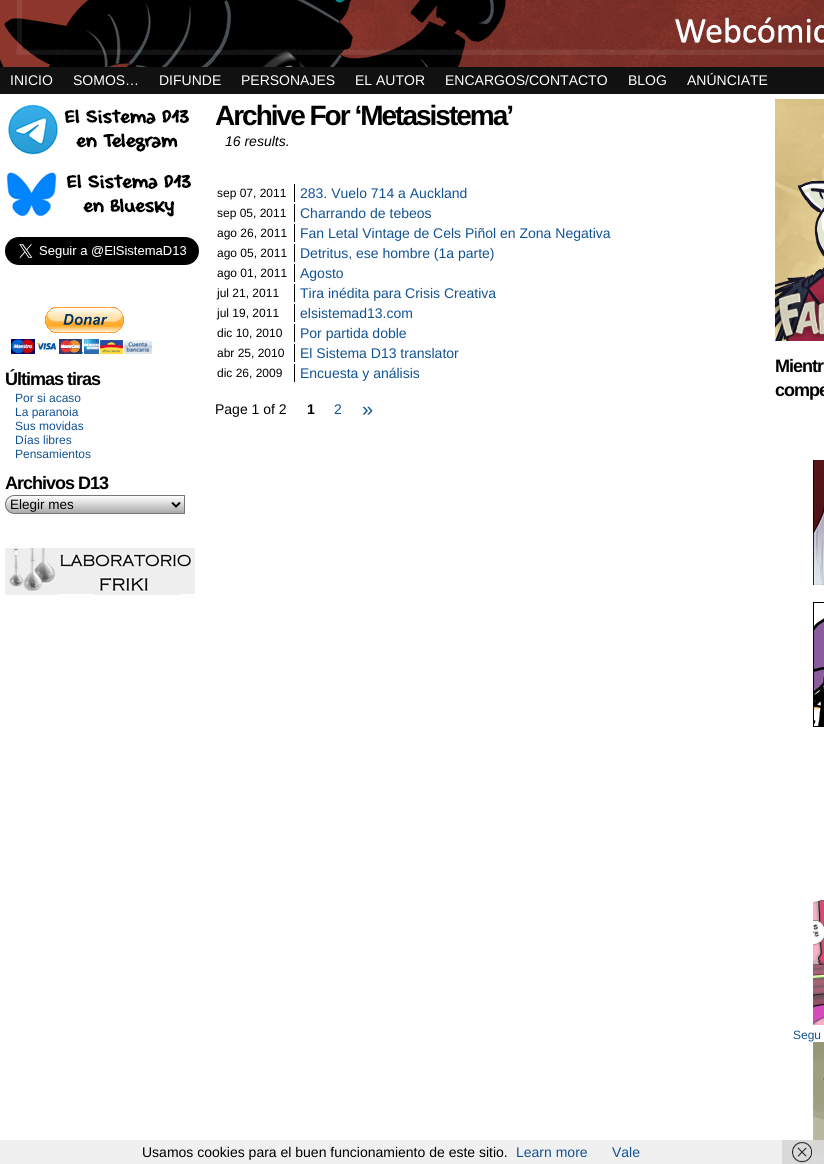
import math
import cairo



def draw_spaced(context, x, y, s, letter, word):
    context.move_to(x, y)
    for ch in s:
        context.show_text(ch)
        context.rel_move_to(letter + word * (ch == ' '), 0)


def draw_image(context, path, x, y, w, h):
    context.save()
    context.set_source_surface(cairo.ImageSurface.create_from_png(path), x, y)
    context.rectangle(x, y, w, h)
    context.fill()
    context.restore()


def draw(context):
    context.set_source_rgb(1, 1, 1)
    context.paint()
    draw_image(context, "images/1.png", 0, 0, 824, 67)
    context.set_source_rgb(17 / 255, 17 / 255, 17 / 255)
    context.rectangle(0, 67, 824, 27)
    context.fill()
    context.set_source_rgb(0, 0, 0)
    context.rectangle(294, 184, 1, 18)
    context.fill()
    context.rectangle(294, 204, 1, 18)
    context.fill()
    context.rectangle(294, 224, 1, 18)
    context.fill()
    context.rectangle(294, 244, 1, 18)
    context.fill()
    context.rectangle(294, 264, 1, 18)
    context.fill()
    context.rectangle(294, 284, 1, 18)
    context.fill()
    context.rectangle(294, 304, 1, 18)
    context.fill()
    context.rectangle(294, 324, 1, 18)
    context.fill()
    context.rectangle(294, 344, 1, 18)
    context.fill()
    context.rectangle(294, 364, 1, 18)
    context.fill()
    draw_image(context, "images/2.png", 8, 104, 181, 51)
    draw_image(context, "images/3.png", 6, 172, 185, 45)
    draw_image(context, "images/4.png", 5, 237, 194, 28)
    draw_image(context, "images/5.png", 11, 307, 141, 47)
    context.save()
    context.new_path()
    context.move_to(14.5, 495)
    context.line_to(185, 495)
    context.line_to(185, 514)
    context.line_to(14.5, 514)
    context.curve_to(9.5, 514, 5, 509.5, 5, 504.5)
    context.curve_to(5, 499.5, 9.5, 495, 14.5, 495)
    context.close_path()
    context.clip()
    gradient = cairo.LinearGradient(6, 496, 6, 513)
    gradient.add_color_stop_rgba(0, 1, 1, 1, 1)
    gradient.add_color_stop_rgba(1, 170 / 255, 170 / 255, 170 / 255, 1)
    context.set_source(gradient)
    context.rectangle(5, 496, 179, 17)
    context.fill()
    context.restore()
    context.new_path()
    context.move_to(14.5, 495.5)
    context.line_to(184.5, 495.5)
    context.line_to(184.5, 513.5)
    context.line_to(14.5, 513.5)
    context.curve_to(9.5, 513.5, 5.5, 509.5, 5.5, 504.5)
    context.curve_to(5.5, 499.5, 9.5, 495.5, 14.5, 495.5)
    context.close_path()
    context.set_source_rgb(118 / 255, 118 / 255, 118 / 255)
    context.set_line_width(1)
    context.stroke()
    context.new_path()
    context.move_to(172, 502.5)
    context.line_to(176, 506.5)
    context.line_to(180, 502.5)
    context.set_source_rgb(0, 0, 0)
    context.set_line_width(2)
    context.stroke()
    draw_image(context, "images/6.png", 5, 548, 190, 47)
    draw_image(context, "images/7.png", 775, 99, 49, 242)
    draw_image(context, "images/8.png", 813, 460, 11, 125)
    draw_image(context, "images/9.png", 813, 602, 11, 125)
    draw_image(context, "images/10.png", 813, 900, 11, 125)
    draw_image(context, "images/11.png", 813, 1042, 11, 122)
    context.set_source_rgba(238 / 255, 238 / 255, 238 / 255, 0.9)
    context.rectangle(0, 1140, 824, 24)
    context.fill()
    context.set_source_rgba(204 / 255, 204 / 255, 204 / 255, 0.6)
    context.rectangle(782, 1140, 42, 24)
    context.fill()
    draw_image(context, "images/12.png", 792, 1142, 20, 21)
    context.select_font_face("Liberation Sans")
    context.set_font_size(14)
    context.set_source_rgb(1, 1, 1)
    context.move_to(10, 85)
    context.show_text("INICIO")
    context.move_to(73, 85)
    context.show_text("SOMOS…")
    context.move_to(159, 85)
    context.show_text("DIFUNDE")
    context.move_to(241, 85)
    context.show_text("PERSONAJES")
    context.move_to(355, 85)
    context.show_text("EL AUTOR")
    context.move_to(445, 85)
    context.show_text("ENCARGOS/CONTACTO")
    context.move_to(628, 85)
    context.show_text("BLOG")
    context.move_to(687, 85)
    context.show_text("ANÚNCIATE")
    context.select_font_face("Liberation Sans", cairo.FontSlant.NORMAL, cairo.FontWeight.BOLD)
    context.set_font_size(28)
    context.set_source_rgb(0, 0, 0)
    draw_spaced(context, 215, 125, "Archive For ‘Metasistema’", -2, 0)
    context.select_font_face("Liberation Sans", cairo.FontSlant.ITALIC)
    context.set_font_size(14)
    context.move_to(225, 146)
    context.show_text("16 results.")
    context.select_font_face("Liberation Sans")
    context.set_font_size(12)
    context.move_to(217, 197)
    context.show_text("sep 07, 2011")
    context.set_font_size(14)
    context.set_source_rgb(17 / 255, 82 / 255, 148 / 255)
    context.move_to(300, 198)
    context.show_text("283. Vuelo 714 a Auckland")
    context.set_font_size(12)
    context.set_source_rgb(0, 0, 0)
    context.move_to(217, 217)
    context.show_text("sep 05, 2011")
    context.set_font_size(14)
    context.set_source_rgb(17 / 255, 82 / 255, 148 / 255)
    context.move_to(300, 218)
    context.show_text("Charrando de tebeos")
    context.set_font_size(12)
    context.set_source_rgb(0, 0, 0)
    context.move_to(217, 237)
    context.show_text("ago 26, 2011")
    context.set_font_size(14)
    context.set_source_rgb(17 / 255, 82 / 255, 148 / 255)
    context.move_to(300, 238)
    context.show_text("Fan Letal Vintage de Cels Piñol en Zona Negativa")
    context.set_font_size(12)
    context.set_source_rgb(0, 0, 0)
    context.move_to(217, 257)
    context.show_text("ago 05, 2011")
    context.set_font_size(14)
    context.set_source_rgb(17 / 255, 82 / 255, 148 / 255)
    context.move_to(300, 258)
    context.show_text("Detritus, ese hombre (1a parte)")
    context.set_font_size(12)
    context.set_source_rgb(0, 0, 0)
    context.move_to(217, 277)
    context.show_text("ago 01, 2011")
    context.set_font_size(14)
    context.set_source_rgb(17 / 255, 82 / 255, 148 / 255)
    context.move_to(300, 278)
    context.show_text("Agosto")
    context.set_font_size(12)
    context.set_source_rgb(0, 0, 0)
    context.move_to(217, 297)
    context.show_text("jul 21, 2011")
    context.set_font_size(14)
    context.set_source_rgb(17 / 255, 82 / 255, 148 / 255)
    context.move_to(300, 298)
    context.show_text("Tira inédita para Crisis Creativa")
    context.set_font_size(12)
    context.set_source_rgb(0, 0, 0)
    context.move_to(217, 317)
    context.show_text("jul 19, 2011")
    context.set_font_size(14)
    context.set_source_rgb(17 / 255, 82 / 255, 148 / 255)
    context.move_to(300, 318)
    context.show_text("elsistemad13.com")
    context.set_font_size(12)
    context.set_source_rgb(0, 0, 0)
    context.move_to(217, 337)
    context.show_text("dic 10, 2010")
    context.set_font_size(14)
    context.set_source_rgb(17 / 255, 82 / 255, 148 / 255)
    context.move_to(300, 338)
    context.show_text("Por partida doble")
    context.set_font_size(12)
    context.set_source_rgb(0, 0, 0)
    context.move_to(217, 357)
    context.show_text("abr 25, 2010")
    context.set_font_size(14)
    context.set_source_rgb(17 / 255, 82 / 255, 148 / 255)
    context.move_to(300, 358)
    context.show_text("El Sistema D13 translator")
    context.set_font_size(12)
    context.set_source_rgb(0, 0, 0)
    context.move_to(217, 377)
    context.show_text("dic 26, 2009")
    context.set_font_size(14)
    context.set_source_rgb(17 / 255, 82 / 255, 148 / 255)
    context.move_to(300, 378)
    context.show_text("Encuesta y análisis")
    context.set_source_rgb(0, 0, 0)
    context.move_to(215, 414)
    context.show_text("Page 1 of 2")
    context.select_font_face("Liberation Sans", cairo.FontSlant.NORMAL, cairo.FontWeight.BOLD)
    context.move_to(307, 414)
    context.show_text("1")
    context.select_font_face("Liberation Sans")
    context.set_source_rgb(17 / 255, 82 / 255, 148 / 255)
    context.move_to(334, 414)
    context.show_text("2")
    context.set_font_size(20)
    context.move_to(362, 416)
    context.show_text("»")
    context.select_font_face("Liberation Sans", cairo.FontSlant.NORMAL, cairo.FontWeight.BOLD)
    context.set_font_size(18)
    context.set_source_rgb(0, 0, 0)
    draw_spaced(context, 5, 385, "Últimas tiras", -1, 0)
    context.select_font_face("Liberation Sans")
    context.set_font_size(12)
    context.set_source_rgb(17 / 255, 82 / 255, 148 / 255)
    context.move_to(15, 402)
    context.show_text("Por si acaso")
    context.move_to(15, 416)
    context.show_text("La paranoia")
    context.move_to(15, 430)
    context.show_text("Sus movidas")
    context.move_to(15, 444)
    context.show_text("Días libres")
    context.move_to(15, 458)
    context.show_text("Pensamientos")
    context.select_font_face("Liberation Sans", cairo.FontSlant.NORMAL, cairo.FontWeight.BOLD)
    context.set_font_size(18)
    context.set_source_rgb(0, 0, 0)
    draw_spaced(context, 5, 489, "Archivos D13", -1, 0)
    context.select_font_face("Liberation Sans")
    context.set_font_size(13.5)
    context.move_to(10, 509)
    context.show_text("Elegir mes")
    context.select_font_face("Liberation Sans", cairo.FontSlant.NORMAL, cairo.FontWeight.BOLD)
    context.set_font_size(18)
    draw_spaced(context, 775, 372, "Mientr", -1, 0)
    draw_spaced(context, 775, 396, "compe", -1, 0)
    context.select_font_face("Liberation Sans")
    context.set_font_size(12)
    context.set_source_rgb(17 / 255, 82 / 255, 148 / 255)
    context.move_to(793, 1039)
    context.show_text("Segu")
    context.set_font_size(14)
    context.set_source_rgb(0, 0, 0)
    context.move_to(142, 1157)
    context.show_text("Usamos cookies para el buen funcionamiento de este sitio.")
    context.set_source_rgb(17 / 255, 82 / 255, 148 / 255)
    context.move_to(516, 1157)
    context.show_text("Learn more")
    context.move_to(612, 1157)
    context.show_text("Vale")


surface = cairo.ImageSurface(cairo.Format.RGB24, 824, 1164)
context = cairo.Context(surface)
options = cairo.FontOptions()
options.set_hint_metrics(cairo.HintMetrics.OFF)
options.set_hint_style(cairo.HintStyle.NONE)
context.set_font_options(options)
context.set_miter_limit(4)
draw(context)
surface.write_to_png("out.png")
